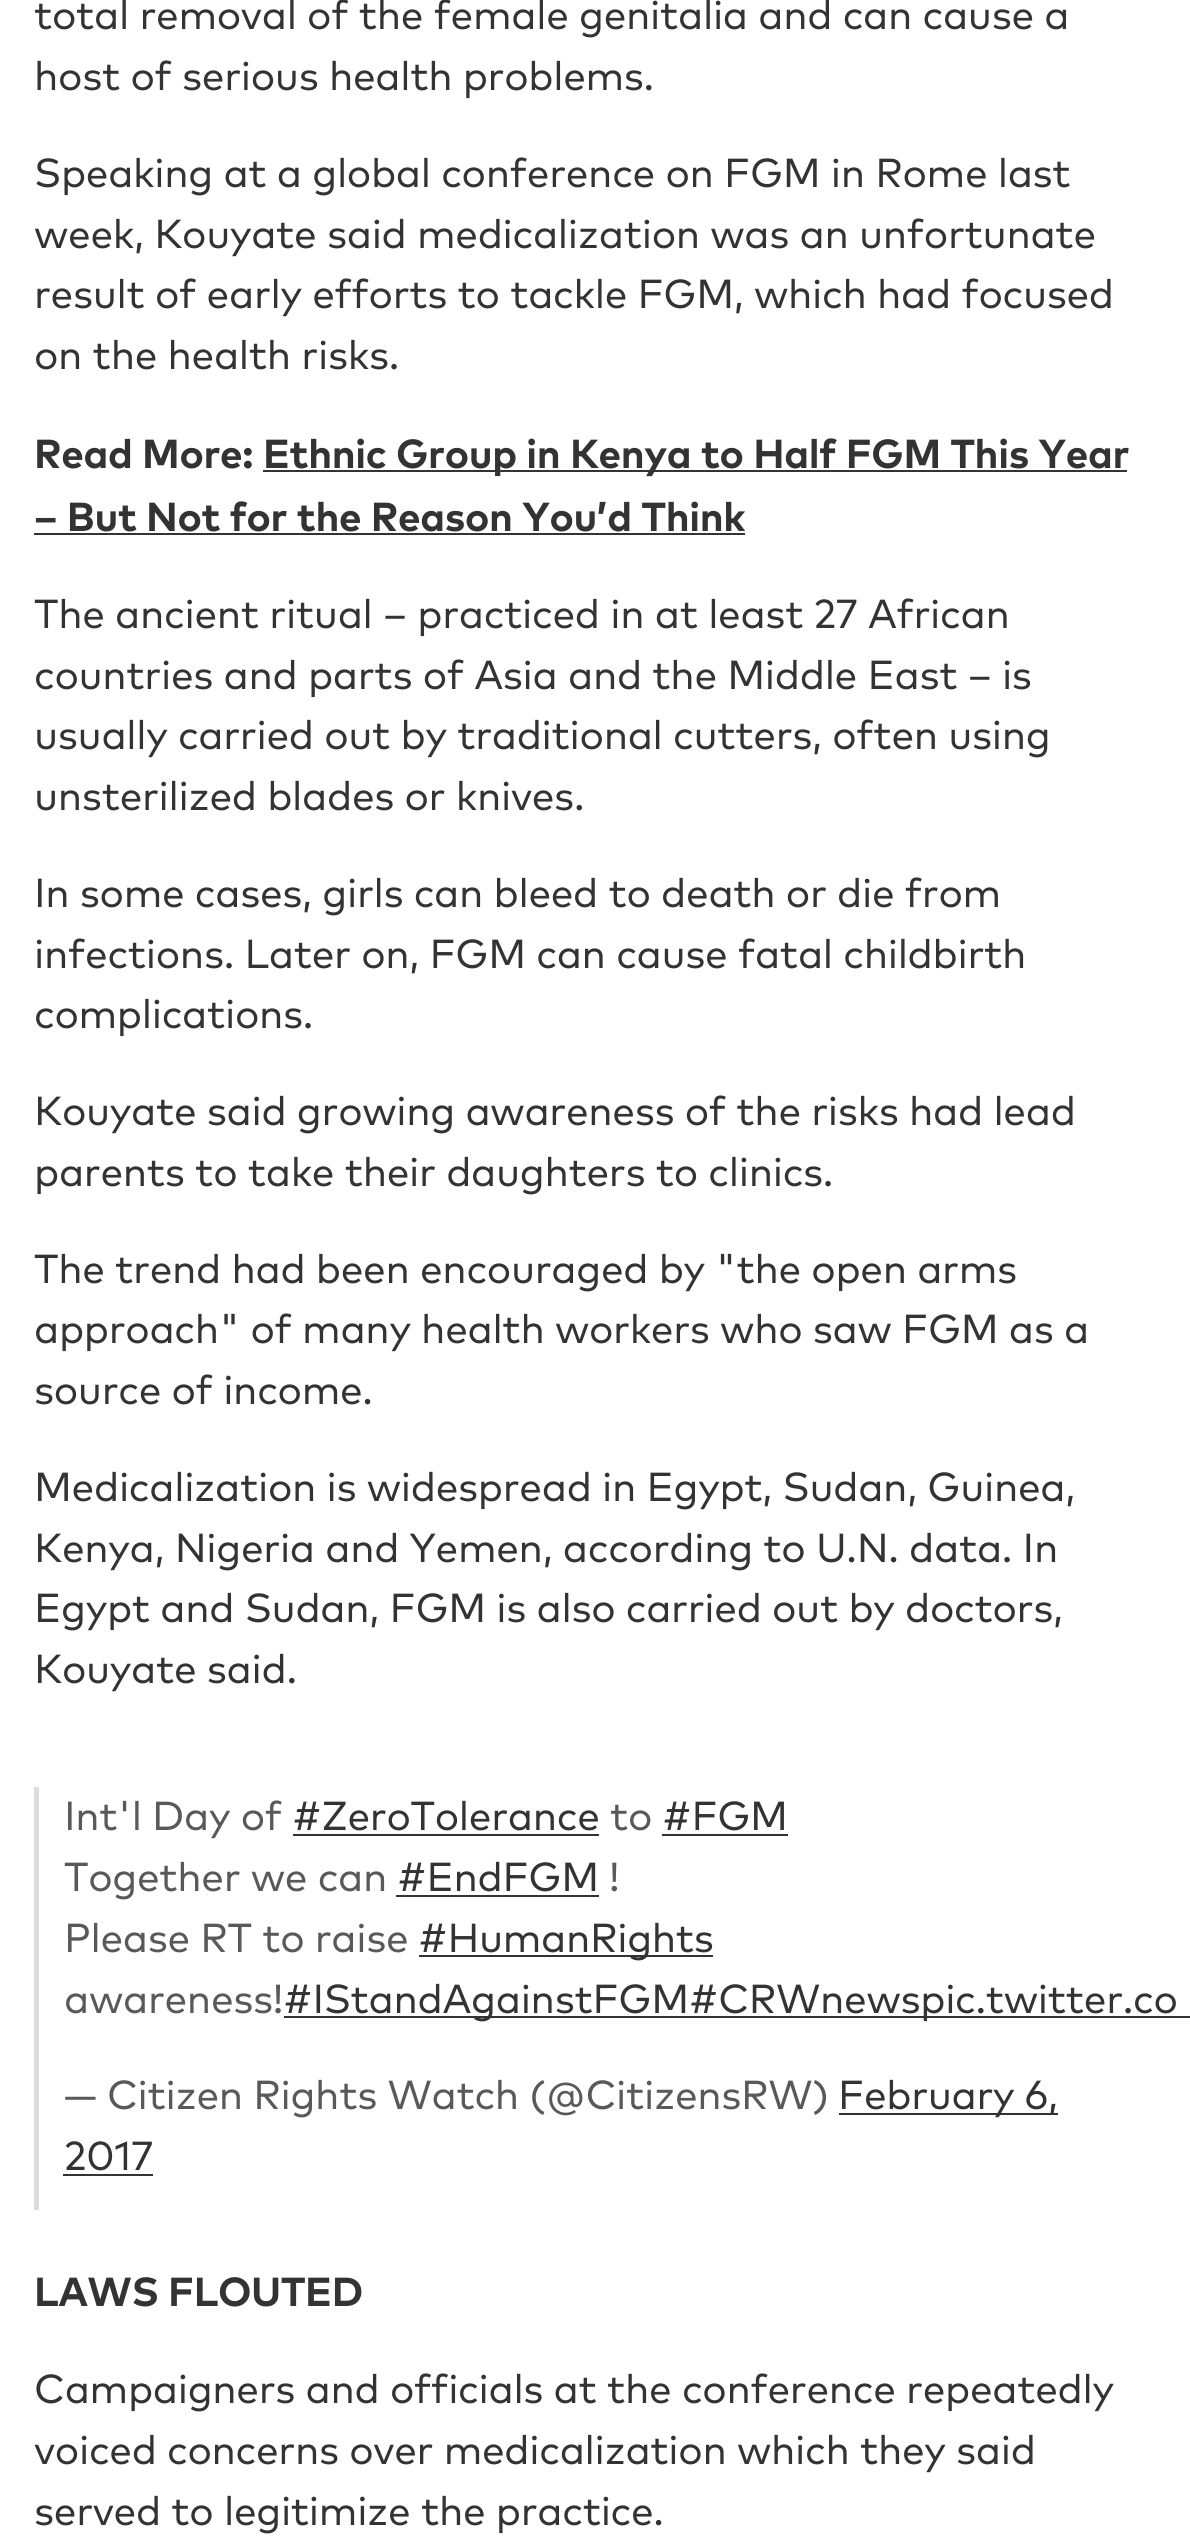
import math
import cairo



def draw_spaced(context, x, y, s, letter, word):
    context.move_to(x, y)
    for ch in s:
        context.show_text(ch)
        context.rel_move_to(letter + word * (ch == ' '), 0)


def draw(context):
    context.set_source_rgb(1, 1, 1)
    context.paint()
    context.set_source_rgb(51 / 255, 51 / 255, 51 / 255)
    context.rectangle(263, 470, 864, 2)
    context.fill()
    context.rectangle(34, 533, 711, 2)
    context.fill()
    context.set_source_rgb(221 / 255, 221 / 255, 221 / 255)
    context.rectangle(34, 1787, 5, 423)
    context.fill()
    context.set_source_rgb(51 / 255, 51 / 255, 51 / 255)
    context.rectangle(293, 1834, 306, 2)
    context.fill()
    context.rectangle(662, 1834, 126, 2)
    context.fill()
    context.rectangle(396, 1895, 203, 2)
    context.fill()
    context.rectangle(419, 1955, 294, 2)
    context.fill()
    context.rectangle(284, 2016, 906, 2)
    context.fill()
    context.rectangle(839, 2113, 219, 2)
    context.fill()
    context.rectangle(63, 2174, 90, 2)
    context.fill()
    context.select_font_face("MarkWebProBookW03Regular")
    context.set_font_size(40.5)
    draw_spaced(context, 34, 29, "total removal of the female genitalia and can cause a", -0.35, 0)
    draw_spaced(context, 34, 90, "host of serious health problems.", -0.35, 0)
    draw_spaced(context, 34, 187, "Speaking at a global conference on FGM in Rome last", -0.35, 0)
    draw_spaced(context, 34, 248, "week, Kouyate said medicalization was an unfortunate", -0.35, 0)
    draw_spaced(context, 34, 308, "result of early efforts to tackle FGM, which had focused", -0.35, 0)
    draw_spaced(context, 34, 369, "on the health risks.", -0.35, 0)
    context.select_font_face("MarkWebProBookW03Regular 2")
    draw_spaced(context, 34, 468, "Read More:", -0.35, 0)
    draw_spaced(context, 263, 468, "Ethnic Group in Kenya to Half FGM This Year", -0.35, 0)
    draw_spaced(context, 34, 531, "– But Not for the Reason You’d Think", -0.35, 0)
    context.select_font_face("MarkWebProBookW03Regular")
    draw_spaced(context, 34, 628, "The ancient ritual – practiced in at least 27 African", -0.35, 0)
    draw_spaced(context, 34, 689, "countries and parts of Asia and the Middle East – is", -0.35, 0)
    draw_spaced(context, 34, 749, "usually carried out by traditional cutters, often using", -0.35, 0)
    draw_spaced(context, 34, 810, "unsterilized blades or knives.", -0.35, 0)
    draw_spaced(context, 34, 907, "In some cases, girls can bleed to death or die from", -0.35, 0)
    draw_spaced(context, 34, 968, "infections. Later on, FGM can cause fatal childbirth", -0.35, 0)
    draw_spaced(context, 34, 1028, "complications.", -0.35, 0)
    draw_spaced(context, 34, 1125, "Kouyate said growing awareness of the risks had lead", -0.35, 0)
    draw_spaced(context, 34, 1186, "parents to take their daughters to clinics.", -0.35, 0)
    draw_spaced(context, 34, 1283, "The trend had been encouraged by \"the open arms", -0.35, 0)
    draw_spaced(context, 34, 1343, "approach\" of many health workers who saw FGM as a", -0.35, 0)
    draw_spaced(context, 34, 1404, "source of income.", -0.35, 0)
    draw_spaced(context, 34, 1501, "Medicalization is widespread in Egypt, Sudan, Guinea,", -0.35, 0)
    draw_spaced(context, 34, 1562, "Kenya, Nigeria and Yemen, according to U.N. data. In", -0.35, 0)
    draw_spaced(context, 34, 1622, "Egypt and Sudan, FGM is also carried out by doctors,", -0.35, 0)
    draw_spaced(context, 34, 1683, "Kouyate said.", -0.35, 0)
    context.set_source_rgb(89 / 255, 89 / 255, 89 / 255)
    draw_spaced(context, 64, 1830, "Int'l Day of", -0.35, 0)
    context.set_source_rgb(51 / 255, 51 / 255, 51 / 255)
    draw_spaced(context, 292, 1830, "#ZeroTolerance", -0.35, 0)
    context.set_source_rgb(89 / 255, 89 / 255, 89 / 255)
    draw_spaced(context, 610, 1830, "to", -0.35, 0)
    context.set_source_rgb(51 / 255, 51 / 255, 51 / 255)
    draw_spaced(context, 662, 1830, "#FGM", -0.35, 0)
    context.set_source_rgb(89 / 255, 89 / 255, 89 / 255)
    draw_spaced(context, 64, 1891, "Together we can", -0.35, 0)
    context.set_source_rgb(51 / 255, 51 / 255, 51 / 255)
    draw_spaced(context, 397, 1891, "#EndFGM", -0.35, 0)
    context.set_source_rgb(89 / 255, 89 / 255, 89 / 255)
    draw_spaced(context, 609, 1891, "!", -0.35, 0)
    draw_spaced(context, 64, 1952, "Please RT to raise", -0.35, 0)
    context.set_source_rgb(51 / 255, 51 / 255, 51 / 255)
    draw_spaced(context, 418, 1952, "#HumanRights", -0.35, 0)
    context.set_source_rgb(89 / 255, 89 / 255, 89 / 255)
    draw_spaced(context, 64, 2013, "awareness!", -0.35, 0)
    context.set_source_rgb(51 / 255, 51 / 255, 51 / 255)
    draw_spaced(context, 283, 2013, "#IStandAgainstFGM#CRWnewspic.twitter.co", -0.35, 0)
    context.set_source_rgb(89 / 255, 89 / 255, 89 / 255)
    draw_spaced(context, 64, 2109, "— Citizen Rights Watch (@CitizensRW)", -0.35, 0)
    context.set_source_rgb(51 / 255, 51 / 255, 51 / 255)
    draw_spaced(context, 838, 2109, "February 6,", -0.35, 0)
    draw_spaced(context, 64, 2170, "2017", -0.35, 0)
    context.select_font_face("MarkWebProBookW03Regular 2")
    draw_spaced(context, 34, 2306, "LAWS FLOUTED", -0.35, 0)
    context.select_font_face("MarkWebProBookW03Regular")
    draw_spaced(context, 34, 2403, "Campaigners and officials at the conference repeatedly", -0.35, 0)
    draw_spaced(context, 34, 2464, "voiced concerns over medicalization which they said", -0.35, 0)
    draw_spaced(context, 34, 2525, "served to legitimize the practice.", -0.35, 0)


surface = cairo.ImageSurface(cairo.Format.RGB24, 1190, 2543)
context = cairo.Context(surface)
options = cairo.FontOptions()
options.set_hint_metrics(cairo.HintMetrics.OFF)
options.set_hint_style(cairo.HintStyle.NONE)
context.set_font_options(options)
context.set_miter_limit(4)
draw(context)
surface.write_to_png("out.png")
